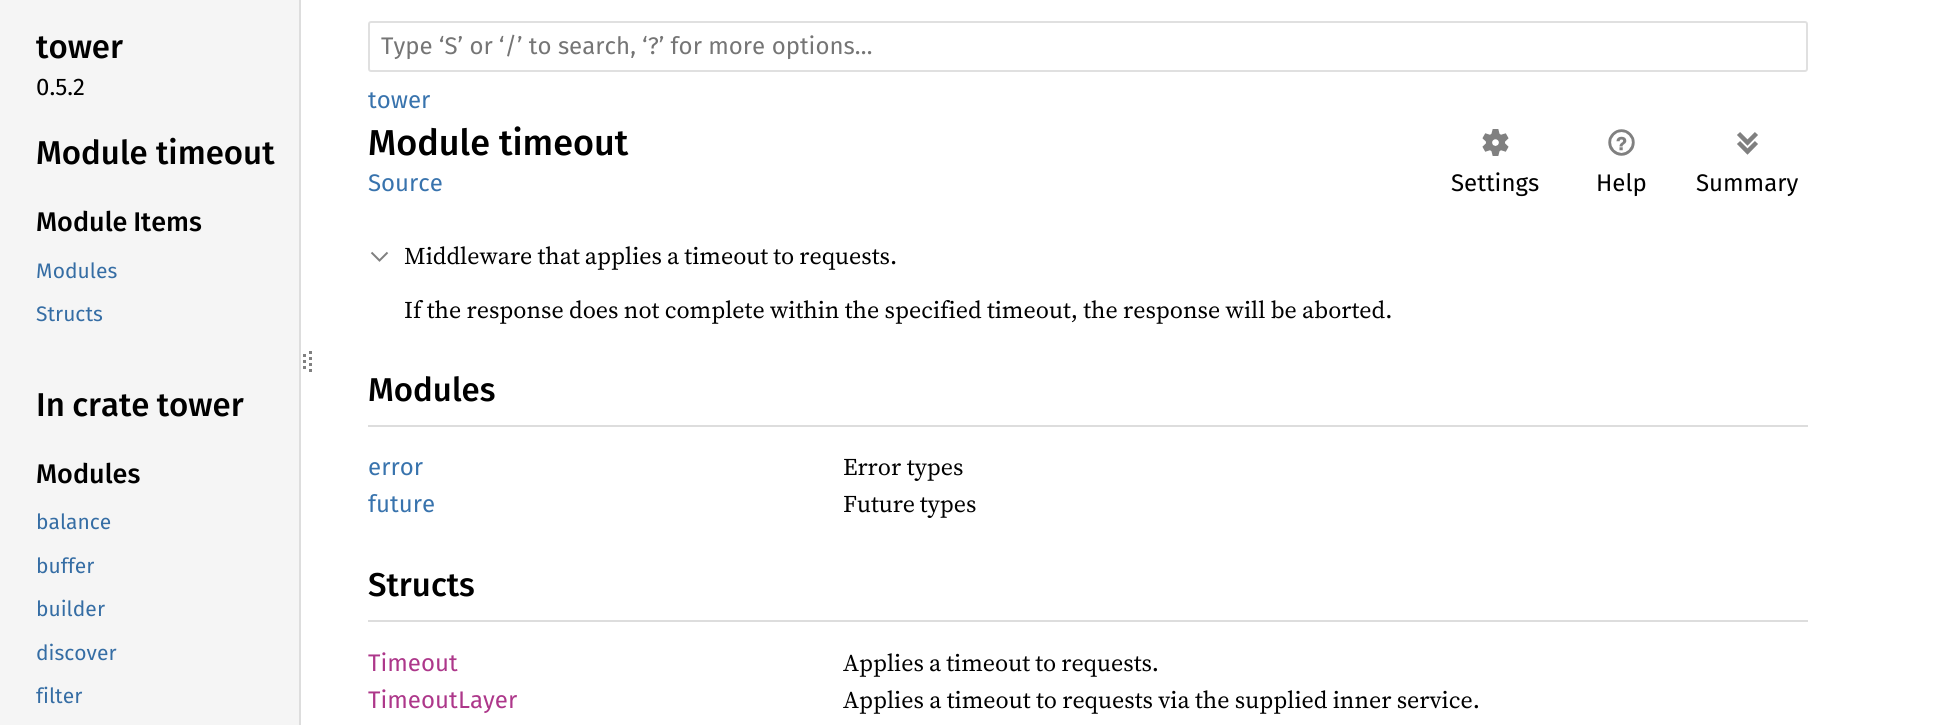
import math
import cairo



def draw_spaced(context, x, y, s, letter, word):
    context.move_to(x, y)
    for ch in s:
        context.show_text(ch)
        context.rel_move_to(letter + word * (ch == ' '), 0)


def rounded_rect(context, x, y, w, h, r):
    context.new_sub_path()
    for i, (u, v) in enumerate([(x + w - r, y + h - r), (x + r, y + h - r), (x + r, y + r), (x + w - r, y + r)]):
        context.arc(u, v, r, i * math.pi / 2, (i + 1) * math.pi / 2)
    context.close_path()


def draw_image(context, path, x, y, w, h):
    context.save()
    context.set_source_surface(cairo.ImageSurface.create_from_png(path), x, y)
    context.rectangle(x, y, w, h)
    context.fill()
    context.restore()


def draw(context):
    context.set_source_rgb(1, 1, 1)
    context.paint()
    context.set_source_rgb(245 / 255, 245 / 255, 245 / 255)
    context.rectangle(0, 0, 299, 725)
    context.fill()
    context.set_source_rgb(221 / 255, 221 / 255, 221 / 255)
    context.rectangle(299, 0, 2, 725)
    context.fill()
    context.new_path()
    context.move_to(304.5, 354)
    context.line_to(304.5, 357)
    context.move_to(304.5, 360)
    context.line_to(304.5, 363)
    context.move_to(304.5, 366)
    context.line_to(304.5, 369)
    context.set_source_rgb(128 / 255, 128 / 255, 128 / 255)
    context.set_line_width(3)
    context.stroke()
    context.new_path()
    context.move_to(310.5, 351)
    context.line_to(310.5, 375)
    context.set_dash([3, 3])
    context.stroke()
    rounded_rect(context, 369, 22, 1438, 49, 2)
    context.set_source_rgb(224 / 255, 224 / 255, 224 / 255)
    context.set_line_width(2)
    context.set_dash([])
    context.stroke()
    draw_image(context, "images/1.png", 1482, 129, 27, 27)
    draw_image(context, "images/2.png", 1608, 129, 27, 27)
    draw_image(context, "images/3.png", 1737, 132, 21, 23)
    context.new_path()
    context.move_to(371.5, 252.5)
    context.line_to(379.5, 260.5)
    context.line_to(387.5, 252.5)
    context.set_source_rgb(128 / 255, 128 / 255, 128 / 255)
    context.stroke()
    context.set_source_rgb(221 / 255, 221 / 255, 221 / 255)
    context.rectangle(368, 425, 1440, 2)
    context.fill()
    context.rectangle(368, 620, 1440, 2)
    context.fill()
    context.select_font_face("Fira Sans Medium")
    context.set_font_size(33)
    context.set_source_rgb(0, 0, 0)
    context.move_to(36, 58)
    context.show_text("tower")
    context.select_font_face("Fira Sans")
    context.set_font_size(24)
    context.move_to(36, 95)
    context.show_text("0.5.2")
    context.select_font_face("Fira Sans Medium")
    context.set_font_size(33)
    context.move_to(36, 164)
    context.show_text("Module timeout")
    context.set_font_size(27)
    draw_spaced(context, 36, 231, "Module Items", 0, -1)
    context.select_font_face("Fira Sans")
    context.set_font_size(21)
    context.set_source_rgb(53 / 255, 109 / 255, 164 / 255)
    context.move_to(36, 278)
    context.show_text("Modules")
    context.move_to(36, 321)
    context.show_text("Structs")
    context.select_font_face("Fira Sans Medium")
    context.set_font_size(33)
    context.set_source_rgb(0, 0, 0)
    draw_spaced(context, 36, 416, "In crate tower", 0, -1)
    context.set_font_size(27)
    context.move_to(36, 483)
    context.show_text("Modules")
    context.select_font_face("Fira Sans")
    context.set_font_size(21)
    context.set_source_rgb(53 / 255, 109 / 255, 164 / 255)
    context.move_to(36, 529)
    context.show_text("balance")
    context.move_to(36, 573)
    context.show_text("buffer")
    context.move_to(36, 616)
    context.show_text("builder")
    context.move_to(36, 660)
    context.show_text("discover")
    context.move_to(36, 703)
    context.show_text("filter")
    context.set_font_size(24)
    context.set_source_rgb(117 / 255, 117 / 255, 117 / 255)
    context.move_to(381, 54)
    context.show_text("Type ‘S’ or ‘/’ to search, ‘?’ for more options…")
    context.set_source_rgb(56 / 255, 115 / 255, 173 / 255)
    context.move_to(368, 108)
    context.show_text("tower")
    context.select_font_face("Fira Sans Medium")
    context.set_font_size(36)
    context.set_source_rgb(0, 0, 0)
    context.move_to(368, 155)
    context.show_text("Module timeout")
    context.select_font_face("Fira Sans")
    context.set_font_size(24)
    context.set_source_rgb(56 / 255, 115 / 255, 173 / 255)
    context.move_to(368, 191)
    context.show_text("Source")
    context.set_source_rgb(0, 0, 0)
    context.move_to(1451, 191)
    context.show_text("Settings")
    context.move_to(1596, 191)
    context.show_text("Help")
    context.move_to(1696, 191)
    context.show_text("Summary")
    context.select_font_face("Source Serif 4")
    draw_spaced(context, 404, 264, "Middleware that applies a timeout to requests.", 0, -0.5)
    draw_spaced(context, 404, 318, "If the response does not complete within the specified timeout, the response will be aborted.", 0, -0.25)
    context.select_font_face("Fira Sans Medium")
    context.set_font_size(33)
    context.move_to(368, 401)
    context.show_text("Modules")
    context.select_font_face("Fira Sans")
    context.set_font_size(24)
    context.set_source_rgb(56 / 255, 115 / 255, 173 / 255)
    context.move_to(368, 475)
    context.show_text("error")
    context.select_font_face("Source Serif 4")
    context.set_source_rgb(0, 0, 0)
    context.move_to(843, 475)
    context.show_text("Error types")
    context.select_font_face("Fira Sans")
    context.set_source_rgb(56 / 255, 115 / 255, 173 / 255)
    context.move_to(368, 512)
    context.show_text("future")
    context.select_font_face("Source Serif 4")
    context.set_source_rgb(0, 0, 0)
    draw_spaced(context, 843, 512, "Future types", 0, -1)
    context.select_font_face("Fira Sans Medium")
    context.set_font_size(33)
    context.move_to(368, 596)
    context.show_text("Structs")
    context.select_font_face("Fira Sans")
    context.set_font_size(24)
    context.set_source_rgb(173 / 255, 55 / 255, 138 / 255)
    context.move_to(368, 671)
    context.show_text("Timeout")
    context.select_font_face("Source Serif 4")
    context.set_source_rgb(0, 0, 0)
    draw_spaced(context, 843, 671, "Applies a timeout to requests.", 0, -0.5)
    context.select_font_face("Fira Sans")
    context.set_source_rgb(173 / 255, 55 / 255, 138 / 255)
    context.move_to(368, 708)
    context.show_text("Timeout")
    context.move_to(458, 708)
    context.show_text("Layer")
    context.select_font_face("Source Serif 4")
    context.set_source_rgb(0, 0, 0)
    draw_spaced(context, 843, 708, "Applies a timeout to requests via the supplied inner service.", 0, -0.25)


surface = cairo.ImageSurface(cairo.Format.RGB24, 1955, 725)
context = cairo.Context(surface)
options = cairo.FontOptions()
options.set_hint_metrics(cairo.HintMetrics.OFF)
options.set_hint_style(cairo.HintStyle.NONE)
context.set_font_options(options)
context.set_miter_limit(4)
draw(context)
surface.write_to_png("out.png")
